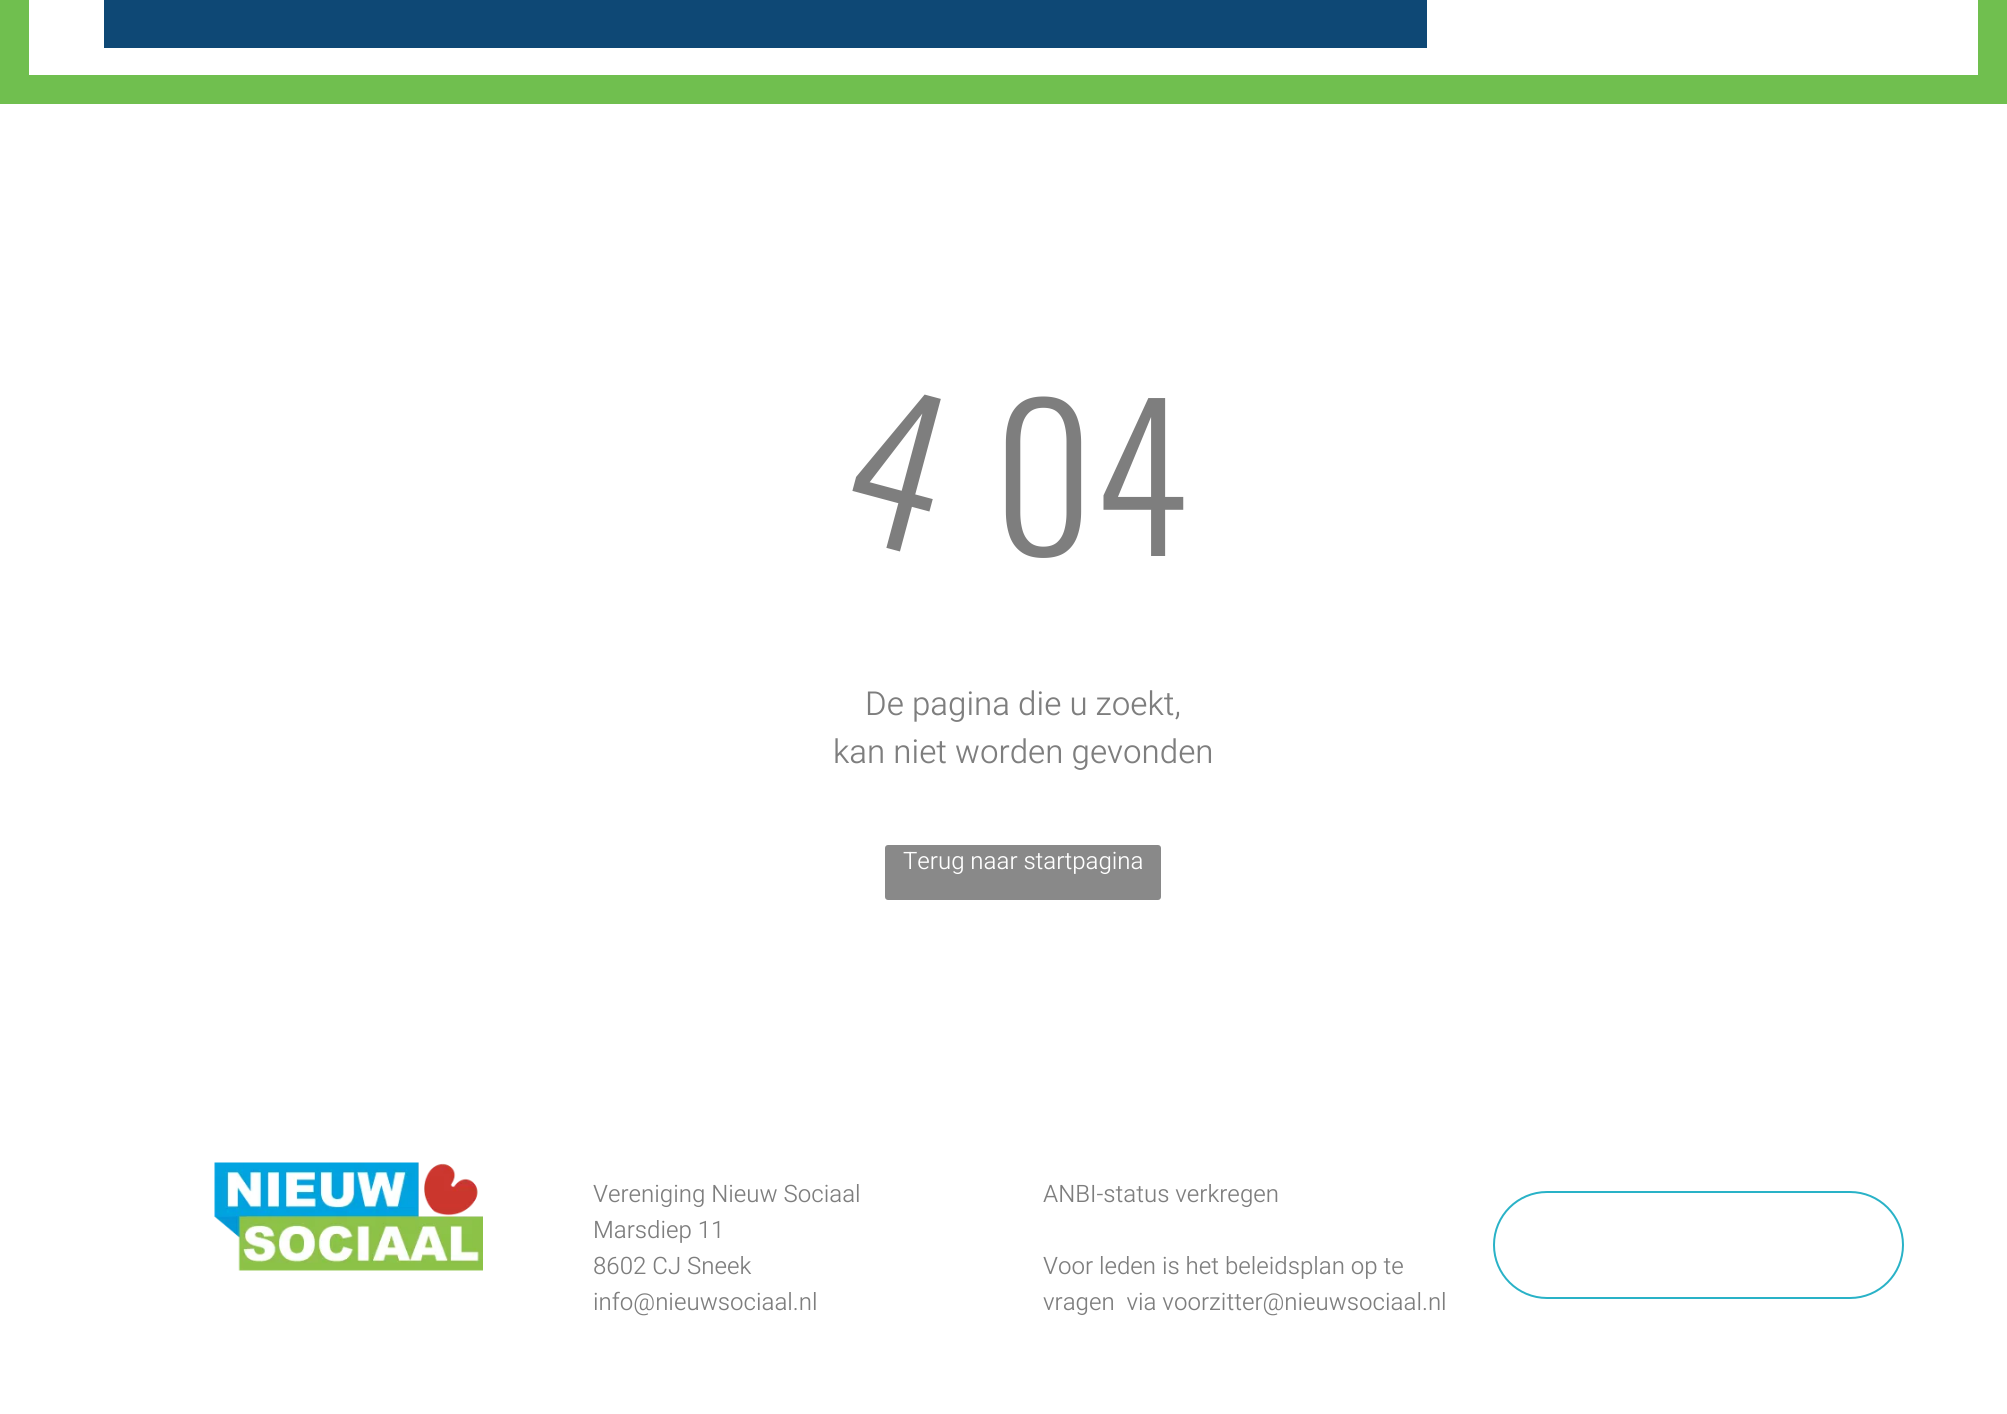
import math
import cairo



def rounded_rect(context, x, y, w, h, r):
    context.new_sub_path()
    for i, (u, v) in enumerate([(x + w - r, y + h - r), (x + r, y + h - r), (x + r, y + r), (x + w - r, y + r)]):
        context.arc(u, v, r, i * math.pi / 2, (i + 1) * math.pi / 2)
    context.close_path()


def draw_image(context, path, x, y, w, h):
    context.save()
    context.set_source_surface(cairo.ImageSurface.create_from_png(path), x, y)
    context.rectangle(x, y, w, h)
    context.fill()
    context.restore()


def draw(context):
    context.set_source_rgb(1, 1, 1)
    context.paint()
    context.rectangle(14.5, -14.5, 1978, 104)
    context.set_source_rgb(112 / 255, 191 / 255, 79 / 255)
    context.set_line_width(29)
    context.stroke()
    context.set_source_rgb(14 / 255, 72 / 255, 117 / 255)
    context.rectangle(104, 0, 1323, 48)
    context.fill()
    context.set_source_rgb(137 / 255, 137 / 255, 137 / 255)
    rounded_rect(context, 885, 845, 276, 55, 3)
    context.fill()
    draw_image(context, "images/1.png", 214, 1162, 269, 109)
    rounded_rect(context, 1494, 1192, 409, 106, 53)
    context.set_source_rgb(41 / 255, 178 / 255, 199 / 255)
    context.set_line_width(2)
    context.stroke()
    context.select_font_face("Oswald Light")
    context.set_font_size(195)
    context.set_source_rgb(126 / 255, 126 / 255, 126 / 255)
    context.save()
    context.translate(831, 533)
    context.rotate(15 * math.pi / 180)
    context.move_to(0, 0)
    context.show_text("4")
    context.restore()
    context.move_to(993, 556)
    context.show_text("04")
    context.select_font_face("Heebo Light")
    context.set_font_size(33)
    context.move_to(865, 715)
    context.show_text("De pagina die u zoekt,")
    context.move_to(833, 763)
    context.show_text("kan niet worden gevonden")
    context.set_font_size(24)
    context.set_source_rgb(1, 1, 1)
    context.move_to(903, 869)
    context.show_text("Terug naar startpagina")
    context.set_source_rgb(126 / 255, 126 / 255, 126 / 255)
    context.move_to(593, 1202)
    context.show_text("Vereniging Nieuw Sociaal")
    context.move_to(593, 1238)
    context.show_text("Marsdiep 11")
    context.move_to(593, 1274)
    context.show_text("8602 CJ Sneek")
    context.move_to(593, 1310)
    context.show_text("info@nieuwsociaal.nl")
    context.move_to(1043, 1202)
    context.show_text("ANBI-status verkregen")
    context.move_to(1043, 1274)
    context.show_text("Voor leden is het beleidsplan op te")
    context.move_to(1043, 1310)
    context.show_text("vragen  via voorzitter@nieuwsociaal.nl")


surface = cairo.ImageSurface(cairo.Format.RGB24, 2007, 1414)
context = cairo.Context(surface)
options = cairo.FontOptions()
options.set_hint_metrics(cairo.HintMetrics.OFF)
options.set_hint_style(cairo.HintStyle.NONE)
context.set_font_options(options)
context.set_miter_limit(4)
draw(context)
surface.write_to_png("out.png")
